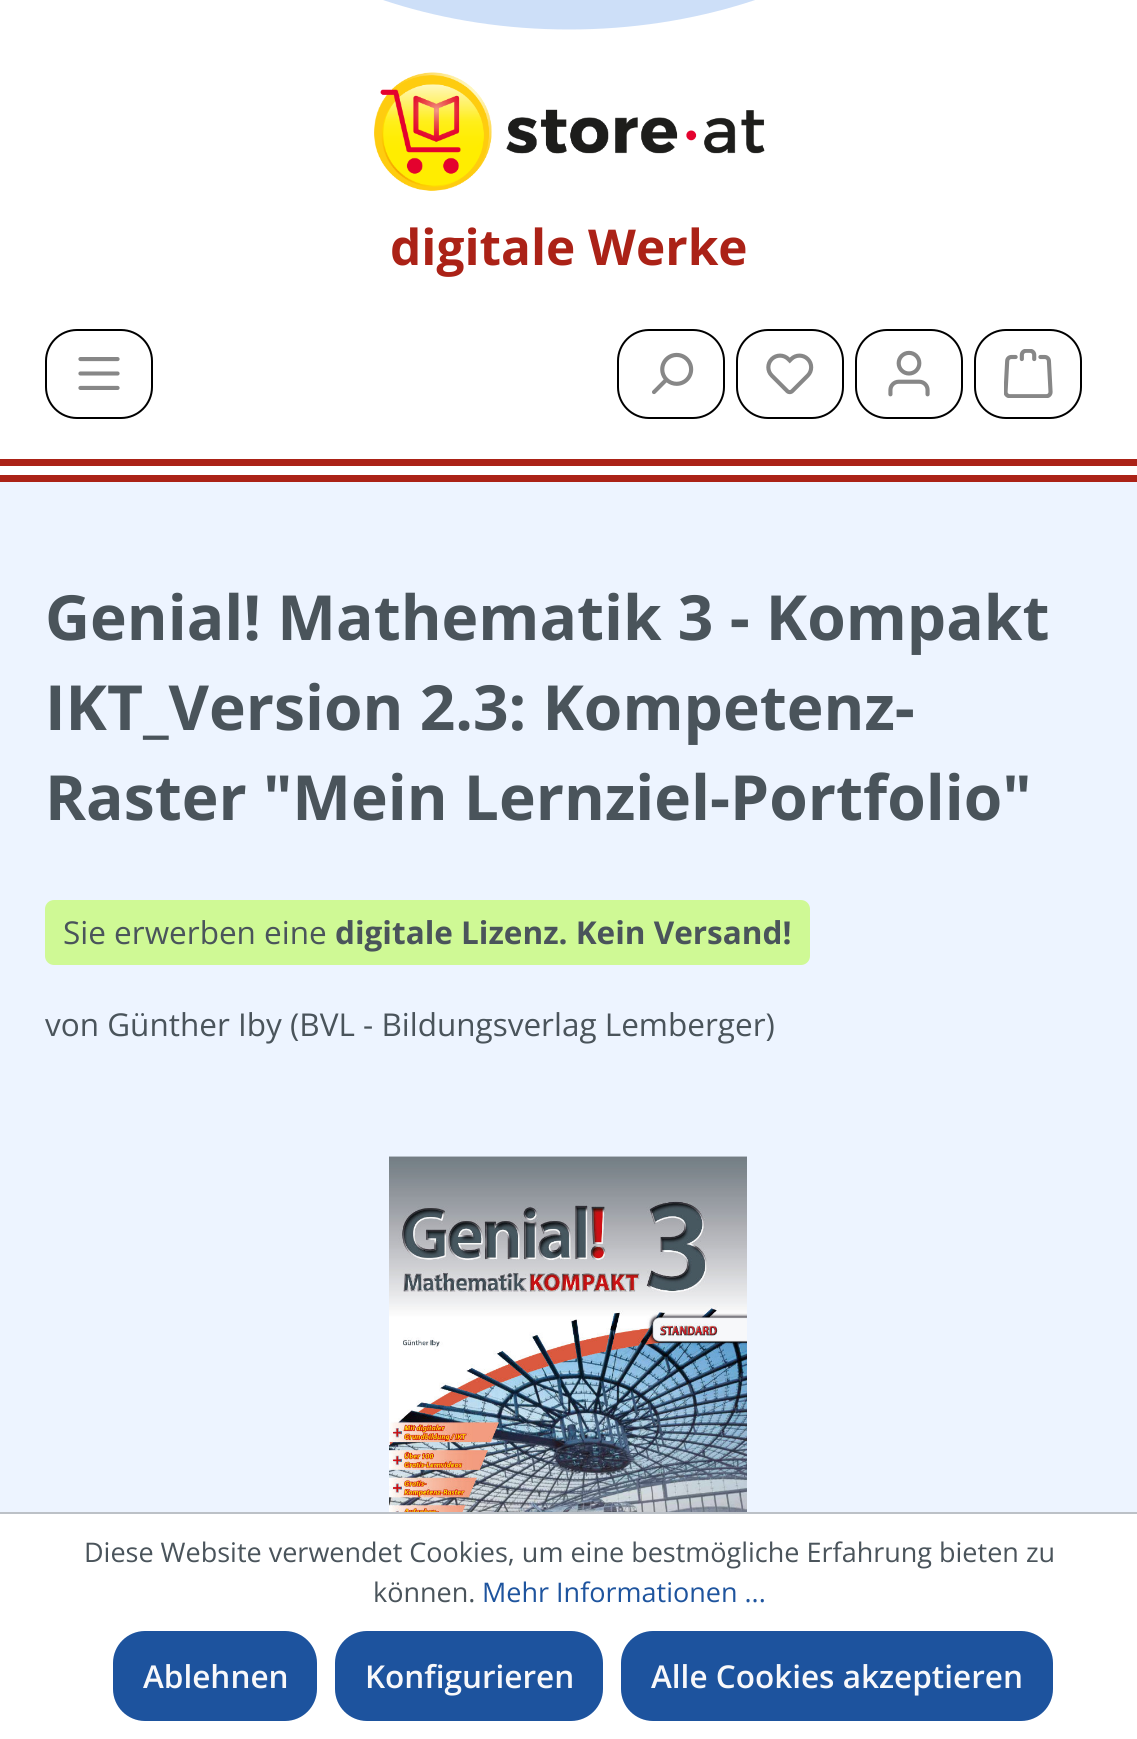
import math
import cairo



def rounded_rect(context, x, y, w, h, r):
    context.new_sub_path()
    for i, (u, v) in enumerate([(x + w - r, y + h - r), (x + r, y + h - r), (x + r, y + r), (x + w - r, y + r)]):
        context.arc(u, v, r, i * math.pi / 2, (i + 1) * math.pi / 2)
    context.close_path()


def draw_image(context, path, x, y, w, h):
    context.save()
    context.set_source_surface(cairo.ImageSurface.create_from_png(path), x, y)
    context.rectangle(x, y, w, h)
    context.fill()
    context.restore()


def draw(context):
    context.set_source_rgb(1, 1, 1)
    context.paint()
    context.set_source_rgb(205 / 255, 223 / 255, 248 / 255)
    context.new_path()
    context.move_to(569, -645.5)
    context.curve_to(820, -645.5, 1023.5, -494.5, 1023.5, -308)
    context.curve_to(1023.5, -121.5, 820, 29.5, 569, 29.5)
    context.curve_to(318, 29.5, 114.5, -121.5, 114.5, -308)
    context.curve_to(114.5, -494.5, 318, -645.5, 569, -645.5)
    context.close_path()
    context.fill()
    context.set_source_rgb(171 / 255, 34 / 255, 23 / 255)
    context.rectangle(0, 459, 1137, 7)
    context.fill()
    context.rectangle(0, 475, 1137, 7)
    context.fill()
    draw_image(context, "images/1.png", 374, 72, 391, 119)
    rounded_rect(context, 46, 330, 106, 88, 31)
    context.set_source_rgb(0, 0, 0)
    context.stroke()
    draw_image(context, "images/2.png", 78, 357, 42, 33)
    rounded_rect(context, 618, 330, 106, 88, 31)
    context.stroke()
    draw_image(context, "images/3.png", 652, 352, 42, 43)
    rounded_rect(context, 737, 330, 106, 88, 31)
    context.stroke()
    draw_image(context, "images/4.png", 766, 353, 48, 42)
    rounded_rect(context, 856, 330, 106, 88, 31)
    context.stroke()
    draw_image(context, "images/5.png", 888, 350, 42, 47)
    rounded_rect(context, 975, 330, 106, 88, 31)
    context.stroke()
    draw_image(context, "images/6.png", 1004, 349, 49, 49)
    context.set_source_rgb(237 / 255, 244 / 255, 1)
    context.rectangle(0, 482, 1137, 1030)
    context.fill()
    context.set_source_rgb(207 / 255, 249 / 255, 149 / 255)
    rounded_rect(context, 45, 900, 765, 65, 9)
    context.fill()
    draw_image(context, "images/7.png", 389, 1156, 358, 356)
    context.set_source_rgb(188 / 255, 193 / 255, 199 / 255)
    context.rectangle(0, 1512, 1137, 2)
    context.fill()
    context.set_source_rgb(29 / 255, 83 / 255, 158 / 255)
    rounded_rect(context, 113, 1631, 204, 90, 32)
    context.fill()
    rounded_rect(context, 335, 1631, 268, 90, 32)
    context.fill()
    rounded_rect(context, 621, 1631, 432, 90, 32)
    context.fill()
    context.select_font_face("Open Sans", cairo.FontSlant.NORMAL, cairo.FontWeight.BOLD)
    context.set_font_size(49.5)
    context.set_source_rgb(171 / 255, 34 / 255, 23 / 255)
    context.move_to(390, 265)
    context.show_text("digitale Werke")
    context.set_font_size(62.25)
    context.set_source_rgb(74 / 255, 84 / 255, 91 / 255)
    context.move_to(45, 640)
    context.show_text("Genial! Mathematik 3 - Kompakt")
    context.move_to(45, 730)
    context.show_text("IKT_Version 2.3: Kompetenz-")
    context.move_to(45, 820)
    context.show_text("Raster \"Mein Lernziel-Portfolio\"")
    context.select_font_face("Open Sans")
    context.set_font_size(31.5)
    context.move_to(63, 944)
    context.show_text("Sie erwerben eine")
    context.select_font_face("Open Sans", cairo.FontSlant.NORMAL, cairo.FontWeight.BOLD)
    context.move_to(335, 944)
    context.show_text("digitale Lizenz. Kein Versand!")
    context.select_font_face("Open Sans")
    context.move_to(45, 1036)
    context.show_text("von Günther Iby (BVL - Bildungsverlag Lemberger)")
    context.set_font_size(27)
    context.move_to(84, 1562)
    context.show_text("Diese Website verwendet Cookies, um eine bestmögliche Erfahrung bieten zu")
    context.move_to(373, 1602)
    context.show_text("können.")
    context.set_source_rgb(30 / 255, 84 / 255, 158 / 255)
    context.move_to(482, 1602)
    context.show_text("Mehr Informationen ...")
    context.select_font_face("Open Sans SemiBold")
    context.set_font_size(31.5)
    context.set_source_rgb(248 / 255, 248 / 255, 250 / 255)
    context.move_to(143, 1688)
    context.show_text("Ablehnen")
    context.move_to(365, 1688)
    context.show_text("Konfigurieren")
    context.move_to(651, 1688)
    context.show_text("Alle Cookies akzeptieren")


surface = cairo.ImageSurface(cairo.Format.RGB24, 1137, 1739)
context = cairo.Context(surface)
options = cairo.FontOptions()
options.set_hint_metrics(cairo.HintMetrics.OFF)
options.set_hint_style(cairo.HintStyle.NONE)
context.set_font_options(options)
context.set_miter_limit(4)
draw(context)
surface.write_to_png("out.png")
